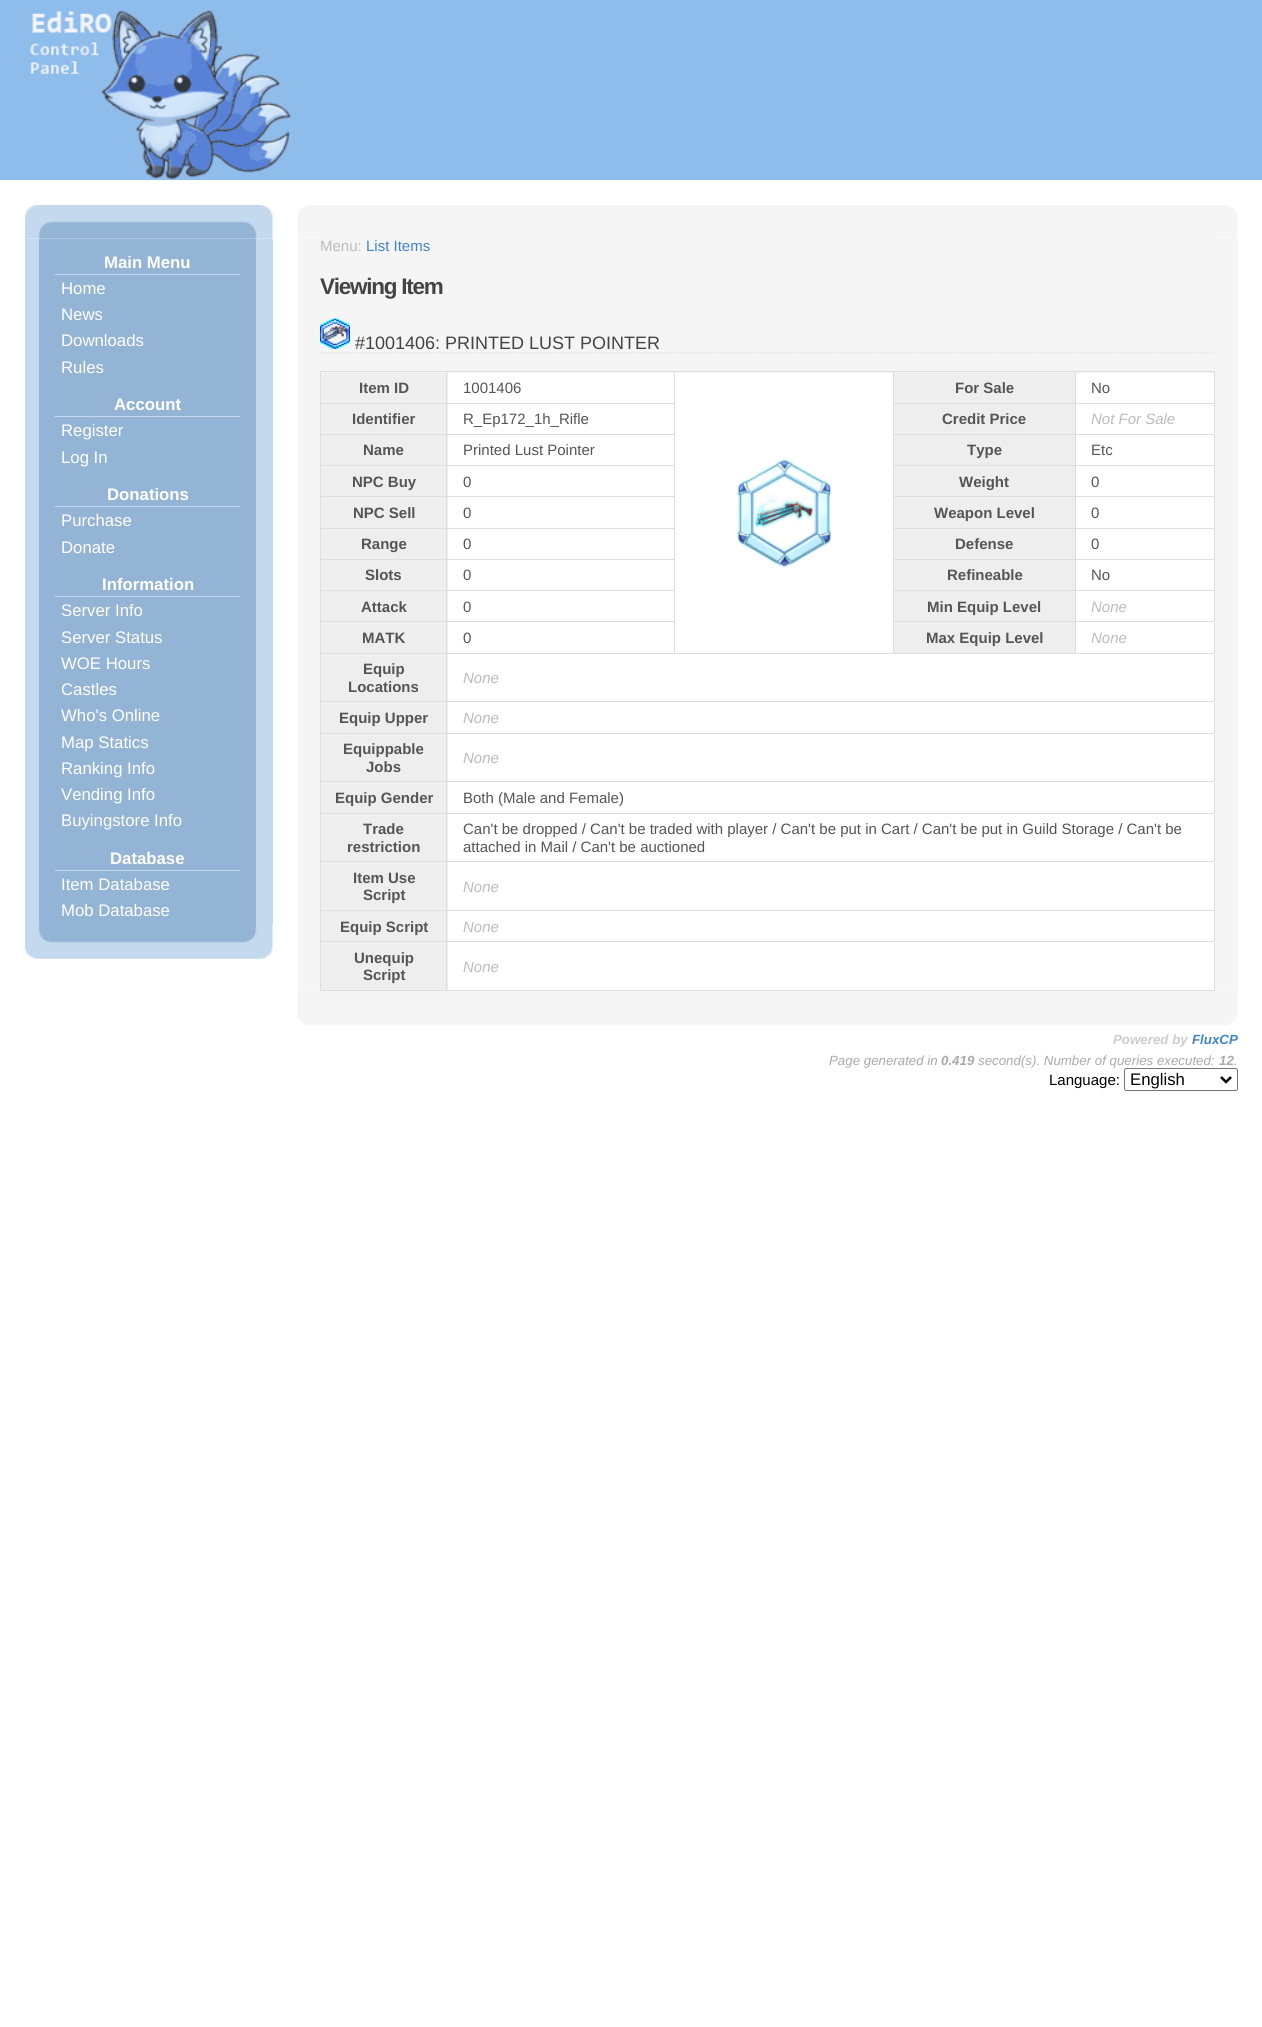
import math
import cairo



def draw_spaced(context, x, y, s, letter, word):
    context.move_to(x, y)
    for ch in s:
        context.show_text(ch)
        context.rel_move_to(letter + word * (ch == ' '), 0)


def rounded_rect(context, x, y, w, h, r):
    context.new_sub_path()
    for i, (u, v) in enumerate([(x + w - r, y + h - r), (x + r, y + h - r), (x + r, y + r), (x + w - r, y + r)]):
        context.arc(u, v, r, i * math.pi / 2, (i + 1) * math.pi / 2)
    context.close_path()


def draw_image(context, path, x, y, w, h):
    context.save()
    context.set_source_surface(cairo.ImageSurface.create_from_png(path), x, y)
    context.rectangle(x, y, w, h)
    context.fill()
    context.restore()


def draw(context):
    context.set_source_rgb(1, 1, 1)
    context.paint()
    context.set_source_rgb(142 / 255, 188 / 255, 235 / 255)
    context.rectangle(0, 0, 1262, 180)
    context.fill()
    draw_image(context, "images/1.png", 30, 10, 262, 169)
    draw_image(context, "images/2.png", 25, 205, 248, 34)
    context.set_source_rgb(148 / 255, 180 / 255, 213 / 255)
    context.rectangle(39, 239, 217, 686)
    context.fill()
    context.set_source_rgb(196 / 255, 217 / 255, 238 / 255)
    context.rectangle(256, 239, 17, 686)
    context.fill()
    context.rectangle(25, 239, 14, 686)
    context.fill()
    context.rectangle(55, 274, 185, 1)
    context.fill()
    context.rectangle(55, 416, 185, 1)
    context.fill()
    context.rectangle(55, 506, 185, 1)
    context.fill()
    context.rectangle(55, 596, 185, 1)
    context.fill()
    context.rectangle(55, 870, 185, 1)
    context.fill()
    draw_image(context, "images/3.png", 25, 925, 248, 34)
    draw_image(context, "images/4.png", 297, 205, 23, 33)
    context.set_source_rgb(245 / 255, 245 / 255, 245 / 255)
    context.rectangle(320, 205, 895, 168)
    context.fill()
    draw_image(context, "images/5.png", 1215, 205, 23, 33)
    context.rectangle(298, 238, 22, 753)
    context.fill()
    context.new_path()
    context.move_to(320, 353)
    context.line_to(1215, 353)
    context.set_source_rgb(221 / 255, 221 / 255, 221 / 255)
    context.set_line_width(1.2)
    context.set_dash([1.25, 1.25])
    context.stroke()
    draw_image(context, "images/6.png", 320, 318, 30, 31)
    context.set_source_rgb(238 / 255, 238 / 255, 238 / 255)
    context.rectangle(321, 373, 127, 30)
    context.fill()
    context.set_source_rgb(221 / 255, 221 / 255, 221 / 255)
    context.rectangle(1075, 371, 140, 1)
    context.fill()
    context.rectangle(1075, 403, 140, 1)
    context.fill()
    context.rectangle(1075, 434, 140, 1)
    context.fill()
    context.rectangle(1075, 465, 140, 1)
    context.fill()
    context.set_source_rgb(238 / 255, 238 / 255, 238 / 255)
    context.rectangle(894, 466, 181, 62)
    context.fill()
    context.set_source_rgb(221 / 255, 221 / 255, 221 / 255)
    context.rectangle(1075, 496, 140, 1)
    context.fill()
    context.rectangle(1075, 528, 140, 1)
    context.fill()
    context.rectangle(1075, 559, 140, 1)
    context.fill()
    context.rectangle(1075, 590, 140, 1)
    context.fill()
    context.set_source_rgb(238 / 255, 238 / 255, 238 / 255)
    context.rectangle(894, 591, 181, 62)
    context.fill()
    context.set_source_rgb(221 / 255, 221 / 255, 221 / 255)
    context.rectangle(1075, 621, 140, 1)
    context.fill()
    context.rectangle(446, 653, 769, 1)
    context.fill()
    context.rectangle(1075, 621, 1, 33)
    context.fill()
    context.rectangle(893, 621, 183, 1)
    context.fill()
    context.rectangle(1075, 590, 1, 33)
    context.fill()
    context.rectangle(893, 590, 183, 1)
    context.fill()
    context.rectangle(1075, 559, 1, 32)
    context.fill()
    context.rectangle(893, 559, 183, 1)
    context.fill()
    context.rectangle(1075, 528, 1, 32)
    context.fill()
    context.rectangle(893, 528, 183, 1)
    context.fill()
    context.rectangle(1075, 496, 1, 33)
    context.fill()
    context.rectangle(893, 496, 183, 1)
    context.fill()
    context.rectangle(1075, 465, 1, 33)
    context.fill()
    context.rectangle(893, 465, 183, 1)
    context.fill()
    context.rectangle(1075, 434, 1, 32)
    context.fill()
    context.rectangle(893, 434, 183, 1)
    context.fill()
    context.rectangle(1075, 403, 1, 32)
    context.fill()
    context.rectangle(893, 403, 183, 1)
    context.fill()
    context.rectangle(1075, 371, 1, 33)
    context.fill()
    context.rectangle(893, 371, 183, 1)
    context.fill()
    context.rectangle(893, 621, 1, 33)
    context.fill()
    context.rectangle(893, 590, 1, 33)
    context.fill()
    context.rectangle(893, 559, 1, 32)
    context.fill()
    context.rectangle(893, 528, 1, 32)
    context.fill()
    context.rectangle(893, 496, 1, 33)
    context.fill()
    context.rectangle(893, 465, 1, 33)
    context.fill()
    context.rectangle(893, 434, 1, 32)
    context.fill()
    context.rectangle(893, 403, 1, 32)
    context.fill()
    context.rectangle(893, 371, 1, 33)
    context.fill()
    context.rectangle(674, 371, 220, 1)
    context.fill()
    context.rectangle(446, 403, 229, 1)
    context.fill()
    context.rectangle(446, 434, 229, 1)
    context.fill()
    context.rectangle(446, 465, 229, 1)
    context.fill()
    context.set_source_rgb(238 / 255, 238 / 255, 238 / 255)
    context.rectangle(321, 466, 127, 62)
    context.fill()
    context.set_source_rgb(221 / 255, 221 / 255, 221 / 255)
    context.rectangle(446, 496, 229, 1)
    context.fill()
    context.rectangle(446, 528, 229, 1)
    context.fill()
    context.rectangle(446, 559, 229, 1)
    context.fill()
    context.rectangle(446, 590, 229, 1)
    context.fill()
    context.set_source_rgb(238 / 255, 238 / 255, 238 / 255)
    context.rectangle(321, 591, 127, 62)
    context.fill()
    context.set_source_rgb(221 / 255, 221 / 255, 221 / 255)
    context.rectangle(446, 621, 229, 1)
    context.fill()
    context.rectangle(674, 371, 1, 283)
    context.fill()
    context.rectangle(446, 371, 229, 1)
    context.fill()
    context.set_source_rgb(238 / 255, 238 / 255, 238 / 255)
    context.rectangle(321, 404, 127, 30)
    context.fill()
    context.rectangle(321, 435, 127, 30)
    context.fill()
    context.rectangle(321, 529, 127, 30)
    context.fill()
    context.rectangle(321, 560, 127, 30)
    context.fill()
    context.rectangle(321, 654, 127, 79)
    context.fill()
    context.set_source_rgb(221 / 255, 221 / 255, 221 / 255)
    context.rectangle(446, 701, 769, 1)
    context.fill()
    context.rectangle(446, 733, 769, 1)
    context.fill()
    context.set_source_rgb(238 / 255, 238 / 255, 238 / 255)
    context.rectangle(321, 734, 127, 79)
    context.fill()
    context.set_source_rgb(221 / 255, 221 / 255, 221 / 255)
    context.rectangle(446, 781, 769, 1)
    context.fill()
    context.rectangle(446, 813, 769, 1)
    context.fill()
    context.set_source_rgb(238 / 255, 238 / 255, 238 / 255)
    context.rectangle(321, 814, 127, 96)
    context.fill()
    context.set_source_rgb(221 / 255, 221 / 255, 221 / 255)
    context.rectangle(446, 861, 769, 1)
    context.fill()
    context.rectangle(446, 910, 769, 1)
    context.fill()
    context.set_source_rgb(238 / 255, 238 / 255, 238 / 255)
    context.rectangle(321, 911, 127, 79)
    context.fill()
    context.set_source_rgb(221 / 255, 221 / 255, 221 / 255)
    context.rectangle(446, 941, 769, 1)
    context.fill()
    context.rectangle(1214, 941, 1, 50)
    context.fill()
    context.rectangle(446, 990, 769, 1)
    context.fill()
    context.rectangle(446, 941, 1, 50)
    context.fill()
    context.rectangle(320, 941, 128, 1)
    context.fill()
    context.rectangle(446, 910, 1, 33)
    context.fill()
    context.rectangle(320, 910, 128, 1)
    context.fill()
    context.rectangle(446, 861, 1, 50)
    context.fill()
    context.rectangle(320, 861, 128, 1)
    context.fill()
    context.rectangle(446, 813, 1, 50)
    context.fill()
    context.rectangle(320, 813, 128, 1)
    context.fill()
    context.rectangle(446, 781, 1, 33)
    context.fill()
    context.rectangle(320, 781, 128, 1)
    context.fill()
    context.rectangle(446, 733, 1, 50)
    context.fill()
    context.rectangle(320, 733, 128, 1)
    context.fill()
    context.rectangle(446, 701, 1, 33)
    context.fill()
    context.rectangle(320, 701, 128, 1)
    context.fill()
    context.rectangle(446, 653, 1, 50)
    context.fill()
    context.rectangle(320, 653, 128, 1)
    context.fill()
    context.rectangle(446, 621, 1, 33)
    context.fill()
    context.rectangle(320, 621, 128, 1)
    context.fill()
    context.rectangle(446, 590, 1, 33)
    context.fill()
    context.rectangle(320, 590, 128, 1)
    context.fill()
    context.rectangle(446, 559, 1, 32)
    context.fill()
    context.rectangle(320, 559, 128, 1)
    context.fill()
    context.rectangle(446, 528, 1, 32)
    context.fill()
    context.rectangle(320, 528, 128, 1)
    context.fill()
    context.rectangle(446, 496, 1, 33)
    context.fill()
    context.rectangle(320, 496, 128, 1)
    context.fill()
    context.rectangle(446, 465, 1, 33)
    context.fill()
    context.rectangle(320, 465, 128, 1)
    context.fill()
    context.rectangle(446, 434, 1, 32)
    context.fill()
    context.rectangle(320, 434, 128, 1)
    context.fill()
    context.rectangle(446, 403, 1, 32)
    context.fill()
    context.rectangle(320, 403, 128, 1)
    context.fill()
    context.rectangle(446, 371, 1, 33)
    context.fill()
    context.rectangle(320, 371, 128, 1)
    context.fill()
    context.rectangle(320, 990, 128, 1)
    context.fill()
    context.rectangle(320, 941, 1, 50)
    context.fill()
    context.rectangle(320, 910, 1, 33)
    context.fill()
    context.rectangle(320, 861, 1, 50)
    context.fill()
    context.rectangle(320, 813, 1, 50)
    context.fill()
    context.rectangle(320, 781, 1, 33)
    context.fill()
    context.rectangle(320, 733, 1, 50)
    context.fill()
    context.rectangle(320, 701, 1, 33)
    context.fill()
    context.rectangle(320, 653, 1, 50)
    context.fill()
    context.rectangle(320, 621, 1, 33)
    context.fill()
    context.rectangle(320, 590, 1, 33)
    context.fill()
    context.rectangle(320, 559, 1, 32)
    context.fill()
    context.rectangle(320, 528, 1, 32)
    context.fill()
    context.rectangle(320, 496, 1, 33)
    context.fill()
    context.rectangle(320, 465, 1, 33)
    context.fill()
    context.rectangle(320, 434, 1, 32)
    context.fill()
    context.rectangle(320, 403, 1, 32)
    context.fill()
    context.rectangle(320, 371, 1, 33)
    context.fill()
    draw_image(context, "images/7.png", 737, 458, 95, 110)
    context.set_source_rgb(238 / 255, 238 / 255, 238 / 255)
    context.rectangle(894, 373, 181, 30)
    context.fill()
    context.set_source_rgb(221 / 255, 221 / 255, 221 / 255)
    context.rectangle(1214, 910, 1, 33)
    context.fill()
    context.rectangle(1214, 861, 1, 50)
    context.fill()
    context.rectangle(1214, 813, 1, 50)
    context.fill()
    context.rectangle(1214, 781, 1, 33)
    context.fill()
    context.rectangle(1214, 733, 1, 50)
    context.fill()
    context.rectangle(1214, 701, 1, 33)
    context.fill()
    context.rectangle(1214, 653, 1, 50)
    context.fill()
    context.rectangle(1214, 621, 1, 33)
    context.fill()
    context.rectangle(1214, 590, 1, 33)
    context.fill()
    context.rectangle(1214, 559, 1, 32)
    context.fill()
    context.rectangle(1214, 528, 1, 32)
    context.fill()
    context.rectangle(1214, 496, 1, 33)
    context.fill()
    context.rectangle(1214, 465, 1, 33)
    context.fill()
    context.rectangle(1214, 434, 1, 32)
    context.fill()
    context.rectangle(1214, 403, 1, 32)
    context.fill()
    context.rectangle(1214, 371, 1, 33)
    context.fill()
    context.set_source_rgb(238 / 255, 238 / 255, 238 / 255)
    context.rectangle(894, 404, 181, 30)
    context.fill()
    context.rectangle(894, 435, 181, 30)
    context.fill()
    context.rectangle(894, 529, 181, 30)
    context.fill()
    context.rectangle(894, 560, 181, 30)
    context.fill()
    context.set_source_rgb(245 / 255, 245 / 255, 245 / 255)
    context.rectangle(1215, 238, 23, 753)
    context.fill()
    draw_image(context, "images/8.png", 297, 991, 23, 34)
    context.rectangle(320, 991, 895, 34)
    context.fill()
    draw_image(context, "images/9.png", 1215, 991, 23, 34)
    rounded_rect(context, 1124.5, 1068.5, 113, 22, 2)
    context.set_source_rgb(118 / 255, 118 / 255, 118 / 255)
    context.set_line_width(1)
    context.set_dash([])
    context.stroke()
    context.new_path()
    context.move_to(1221, 1077)
    context.line_to(1226, 1082)
    context.line_to(1231, 1077)
    context.set_source_rgb(0, 0, 0)
    context.set_line_width(2.5)
    context.stroke()
    context.select_font_face("Liberation Sans", cairo.FontSlant.NORMAL, cairo.FontWeight.BOLD)
    context.set_font_size(16.75)
    context.set_source_rgb(1, 1, 1)
    context.move_to(104, 268)
    context.show_text("Main Menu")
    context.select_font_face("Liberation Sans")
    context.move_to(61, 294)
    context.show_text("Home")
    context.move_to(61, 320)
    context.show_text("News")
    context.move_to(61, 346)
    context.show_text("Downloads")
    context.move_to(61, 373)
    context.show_text("Rules")
    context.select_font_face("Liberation Sans", cairo.FontSlant.NORMAL, cairo.FontWeight.BOLD)
    context.move_to(114, 410)
    context.show_text("Account")
    context.select_font_face("Liberation Sans")
    context.move_to(61, 436)
    context.show_text("Register")
    context.move_to(61, 463)
    context.show_text("Log In")
    context.select_font_face("Liberation Sans", cairo.FontSlant.NORMAL, cairo.FontWeight.BOLD)
    context.move_to(107, 500)
    context.show_text("Donations")
    context.select_font_face("Liberation Sans")
    context.move_to(61, 526)
    context.show_text("Purchase")
    context.move_to(61, 553)
    context.show_text("Donate")
    context.select_font_face("Liberation Sans", cairo.FontSlant.NORMAL, cairo.FontWeight.BOLD)
    context.move_to(102, 590)
    context.show_text("Information")
    context.select_font_face("Liberation Sans")
    context.move_to(61, 616)
    context.show_text("Server Info")
    context.move_to(61, 643)
    context.show_text("Server Status")
    context.move_to(61, 669)
    context.show_text("WOE Hours")
    context.move_to(61, 695)
    context.show_text("Castles")
    context.move_to(61, 721)
    context.show_text("Who's Online")
    context.move_to(61, 748)
    context.show_text("Map Statics")
    context.move_to(61, 774)
    context.show_text("Ranking Info")
    context.move_to(61, 800)
    context.show_text("Vending Info")
    context.move_to(61, 826)
    context.show_text("Buyingstore Info")
    context.select_font_face("Liberation Sans", cairo.FontSlant.NORMAL, cairo.FontWeight.BOLD)
    context.move_to(110, 864)
    context.show_text("Database")
    context.select_font_face("Liberation Sans")
    context.move_to(61, 890)
    context.show_text("Item Database")
    context.move_to(61, 916)
    context.show_text("Mob Database")
    context.set_font_size(15)
    context.set_source_rgb(187 / 255, 187 / 255, 187 / 255)
    context.move_to(320, 251)
    context.show_text("Menu:")
    context.set_source_rgb(64 / 255, 131 / 255, 198 / 255)
    context.move_to(366, 251)
    context.show_text("List Items")
    context.select_font_face("Liberation Sans", cairo.FontSlant.NORMAL, cairo.FontWeight.BOLD)
    context.set_font_size(22.5)
    context.set_source_rgb(68 / 255, 68 / 255, 68 / 255)
    draw_spaced(context, 320, 294, "Viewing Item", -1.25, 0)
    context.select_font_face("Liberation Sans")
    context.set_font_size(18)
    context.move_to(355, 349)
    context.show_text("#1001406: PRINTED LUST POINTER")
    context.select_font_face("Liberation Sans", cairo.FontSlant.NORMAL, cairo.FontWeight.BOLD)
    context.set_font_size(15)
    context.set_source_rgb(85 / 255, 85 / 255, 85 / 255)
    context.move_to(359, 393)
    context.show_text("Item ID")
    context.select_font_face("Liberation Sans")
    context.move_to(463, 393)
    context.show_text("1001406")
    context.select_font_face("Liberation Sans", cairo.FontSlant.NORMAL, cairo.FontWeight.BOLD)
    context.move_to(955, 393)
    context.show_text("For Sale")
    context.select_font_face("Liberation Sans")
    context.move_to(1091, 393)
    context.show_text("No")
    context.select_font_face("Liberation Sans", cairo.FontSlant.NORMAL, cairo.FontWeight.BOLD)
    context.move_to(352, 424)
    context.show_text("Identifier")
    context.select_font_face("Liberation Sans")
    context.move_to(463, 424)
    context.show_text("R_Ep172_1h_Rifle")
    context.select_font_face("Liberation Sans", cairo.FontSlant.NORMAL, cairo.FontWeight.BOLD)
    context.move_to(942, 424)
    context.show_text("Credit Price")
    context.select_font_face("Liberation Sans", cairo.FontSlant.ITALIC)
    context.set_source_rgb(187 / 255, 187 / 255, 187 / 255)
    context.move_to(1091, 424)
    context.show_text("Not For Sale")
    context.select_font_face("Liberation Sans", cairo.FontSlant.NORMAL, cairo.FontWeight.BOLD)
    context.set_source_rgb(85 / 255, 85 / 255, 85 / 255)
    context.move_to(363, 455)
    context.show_text("Name")
    context.select_font_face("Liberation Sans")
    context.move_to(463, 455)
    context.show_text("Printed Lust Pointer")
    context.select_font_face("Liberation Sans", cairo.FontSlant.NORMAL, cairo.FontWeight.BOLD)
    context.move_to(967, 455)
    context.show_text("Type")
    context.select_font_face("Liberation Sans")
    context.move_to(1091, 455)
    context.show_text("Etc")
    context.select_font_face("Liberation Sans", cairo.FontSlant.NORMAL, cairo.FontWeight.BOLD)
    context.move_to(352, 487)
    context.show_text("NPC Buy")
    context.select_font_face("Liberation Sans")
    context.move_to(463, 487)
    context.show_text("0")
    context.select_font_face("Liberation Sans", cairo.FontSlant.NORMAL, cairo.FontWeight.BOLD)
    context.move_to(959, 487)
    context.show_text("Weight")
    context.select_font_face("Liberation Sans")
    context.move_to(1091, 487)
    context.show_text("0")
    context.select_font_face("Liberation Sans", cairo.FontSlant.NORMAL, cairo.FontWeight.BOLD)
    context.move_to(353, 518)
    context.show_text("NPC Sell")
    context.select_font_face("Liberation Sans")
    context.move_to(463, 518)
    context.show_text("0")
    context.select_font_face("Liberation Sans", cairo.FontSlant.NORMAL, cairo.FontWeight.BOLD)
    context.move_to(934, 518)
    context.show_text("Weapon Level")
    context.select_font_face("Liberation Sans")
    context.move_to(1091, 518)
    context.show_text("0")
    context.select_font_face("Liberation Sans", cairo.FontSlant.NORMAL, cairo.FontWeight.BOLD)
    context.move_to(361, 549)
    context.show_text("Range")
    context.select_font_face("Liberation Sans")
    context.move_to(463, 549)
    context.show_text("0")
    context.select_font_face("Liberation Sans", cairo.FontSlant.NORMAL, cairo.FontWeight.BOLD)
    context.move_to(955, 549)
    context.show_text("Defense")
    context.select_font_face("Liberation Sans")
    context.move_to(1091, 549)
    context.show_text("0")
    context.select_font_face("Liberation Sans", cairo.FontSlant.NORMAL, cairo.FontWeight.BOLD)
    context.move_to(365, 580)
    context.show_text("Slots")
    context.select_font_face("Liberation Sans")
    context.move_to(463, 580)
    context.show_text("0")
    context.select_font_face("Liberation Sans", cairo.FontSlant.NORMAL, cairo.FontWeight.BOLD)
    context.move_to(947, 580)
    context.show_text("Refineable")
    context.select_font_face("Liberation Sans")
    context.move_to(1091, 580)
    context.show_text("No")
    context.select_font_face("Liberation Sans", cairo.FontSlant.NORMAL, cairo.FontWeight.BOLD)
    context.move_to(361, 612)
    context.show_text("Attack")
    context.select_font_face("Liberation Sans")
    context.move_to(463, 612)
    context.show_text("0")
    context.select_font_face("Liberation Sans", cairo.FontSlant.NORMAL, cairo.FontWeight.BOLD)
    context.move_to(927, 612)
    context.show_text("Min Equip Level")
    context.select_font_face("Liberation Sans", cairo.FontSlant.ITALIC)
    context.set_source_rgb(187 / 255, 187 / 255, 187 / 255)
    context.move_to(1091, 612)
    context.show_text("None")
    context.select_font_face("Liberation Sans", cairo.FontSlant.NORMAL, cairo.FontWeight.BOLD)
    context.set_source_rgb(85 / 255, 85 / 255, 85 / 255)
    context.move_to(362, 643)
    context.show_text("MATK")
    context.select_font_face("Liberation Sans")
    context.move_to(463, 643)
    context.show_text("0")
    context.select_font_face("Liberation Sans", cairo.FontSlant.NORMAL, cairo.FontWeight.BOLD)
    context.move_to(926, 643)
    context.show_text("Max Equip Level")
    context.select_font_face("Liberation Sans", cairo.FontSlant.ITALIC)
    context.set_source_rgb(187 / 255, 187 / 255, 187 / 255)
    context.move_to(1091, 643)
    context.show_text("None")
    context.select_font_face("Liberation Sans", cairo.FontSlant.NORMAL, cairo.FontWeight.BOLD)
    context.set_source_rgb(85 / 255, 85 / 255, 85 / 255)
    context.move_to(363, 674)
    context.show_text("Equip")
    context.move_to(348, 692)
    context.show_text("Locations")
    context.select_font_face("Liberation Sans", cairo.FontSlant.ITALIC)
    context.set_source_rgb(187 / 255, 187 / 255, 187 / 255)
    context.move_to(463, 683)
    context.show_text("None")
    context.select_font_face("Liberation Sans", cairo.FontSlant.NORMAL, cairo.FontWeight.BOLD)
    context.set_source_rgb(85 / 255, 85 / 255, 85 / 255)
    context.move_to(339, 723)
    context.show_text("Equip Upper")
    context.select_font_face("Liberation Sans", cairo.FontSlant.ITALIC)
    context.set_source_rgb(187 / 255, 187 / 255, 187 / 255)
    context.move_to(463, 723)
    context.show_text("None")
    context.select_font_face("Liberation Sans", cairo.FontSlant.NORMAL, cairo.FontWeight.BOLD)
    context.set_source_rgb(85 / 255, 85 / 255, 85 / 255)
    context.move_to(343, 754)
    context.show_text("Equippable")
    context.move_to(366, 772)
    context.show_text("Jobs")
    context.select_font_face("Liberation Sans", cairo.FontSlant.ITALIC)
    context.set_source_rgb(187 / 255, 187 / 255, 187 / 255)
    context.move_to(463, 763)
    context.show_text("None")
    context.select_font_face("Liberation Sans", cairo.FontSlant.NORMAL, cairo.FontWeight.BOLD)
    context.set_source_rgb(85 / 255, 85 / 255, 85 / 255)
    context.move_to(335, 803)
    context.show_text("Equip Gender")
    context.select_font_face("Liberation Sans")
    context.move_to(463, 803)
    context.show_text("Both (Male and Female)")
    context.select_font_face("Liberation Sans", cairo.FontSlant.NORMAL, cairo.FontWeight.BOLD)
    context.move_to(363, 834)
    context.show_text("Trade")
    context.move_to(347, 852)
    context.show_text("restriction")
    context.select_font_face("Liberation Sans")
    context.move_to(463, 834)
    context.show_text("Can't be dropped / Can't be traded with player / Can't be put in Cart / Can't be put in Guild Storage / Can't be")
    context.move_to(463, 852)
    context.show_text("attached in Mail / Can't be auctioned")
    context.select_font_face("Liberation Sans", cairo.FontSlant.NORMAL, cairo.FontWeight.BOLD)
    context.move_to(353, 883)
    context.show_text("Item Use")
    context.move_to(363, 900)
    context.show_text("Script")
    context.select_font_face("Liberation Sans", cairo.FontSlant.ITALIC)
    context.set_source_rgb(187 / 255, 187 / 255, 187 / 255)
    context.move_to(463, 892)
    context.show_text("None")
    context.select_font_face("Liberation Sans", cairo.FontSlant.NORMAL, cairo.FontWeight.BOLD)
    context.set_source_rgb(85 / 255, 85 / 255, 85 / 255)
    context.move_to(340, 932)
    context.show_text("Equip Script")
    context.select_font_face("Liberation Sans", cairo.FontSlant.ITALIC)
    context.set_source_rgb(187 / 255, 187 / 255, 187 / 255)
    context.move_to(463, 932)
    context.show_text("None")
    context.select_font_face("Liberation Sans", cairo.FontSlant.NORMAL, cairo.FontWeight.BOLD)
    context.set_source_rgb(85 / 255, 85 / 255, 85 / 255)
    context.move_to(354, 963)
    context.show_text("Unequip")
    context.move_to(363, 980)
    context.show_text("Script")
    context.select_font_face("Liberation Sans", cairo.FontSlant.ITALIC)
    context.set_source_rgb(187 / 255, 187 / 255, 187 / 255)
    context.move_to(463, 972)
    context.show_text("None")
    context.select_font_face("Liberation Sans", cairo.FontSlant.ITALIC, cairo.FontWeight.BOLD)
    context.set_font_size(13.3)
    context.set_source_rgb(204 / 255, 204 / 255, 204 / 255)
    context.move_to(1113, 1044)
    context.show_text("Powered by")
    context.set_source_rgb(64 / 255, 131 / 255, 198 / 255)
    context.move_to(1192, 1044)
    context.show_text("FluxCP")
    context.select_font_face("Liberation Sans", cairo.FontSlant.ITALIC)
    context.set_source_rgb(170 / 255, 170 / 255, 170 / 255)
    context.move_to(829, 1065)
    context.show_text("Page generated in")
    context.select_font_face("Liberation Sans", cairo.FontSlant.ITALIC, cairo.FontWeight.BOLD)
    context.move_to(941, 1065)
    context.show_text("0.419")
    context.select_font_face("Liberation Sans", cairo.FontSlant.ITALIC)
    context.move_to(978, 1065)
    context.show_text("second(s). Number of queries executed:")
    context.select_font_face("Liberation Sans", cairo.FontSlant.ITALIC, cairo.FontWeight.BOLD)
    context.move_to(1219, 1065)
    context.show_text("12")
    context.select_font_face("Liberation Sans", cairo.FontSlant.ITALIC)
    context.move_to(1234, 1065)
    context.show_text(".")
    context.select_font_face("Liberation Sans")
    context.set_font_size(15)
    context.set_source_rgb(0, 0, 0)
    context.move_to(1049, 1085)
    context.show_text("Language:")
    context.set_font_size(16.75)
    context.move_to(1130, 1085)
    context.show_text("English")


surface = cairo.ImageSurface(cairo.Format.RGB24, 1262, 2027)
context = cairo.Context(surface)
options = cairo.FontOptions()
options.set_hint_metrics(cairo.HintMetrics.OFF)
options.set_hint_style(cairo.HintStyle.NONE)
context.set_font_options(options)
context.set_miter_limit(4)
draw(context)
surface.write_to_png("out.png")
